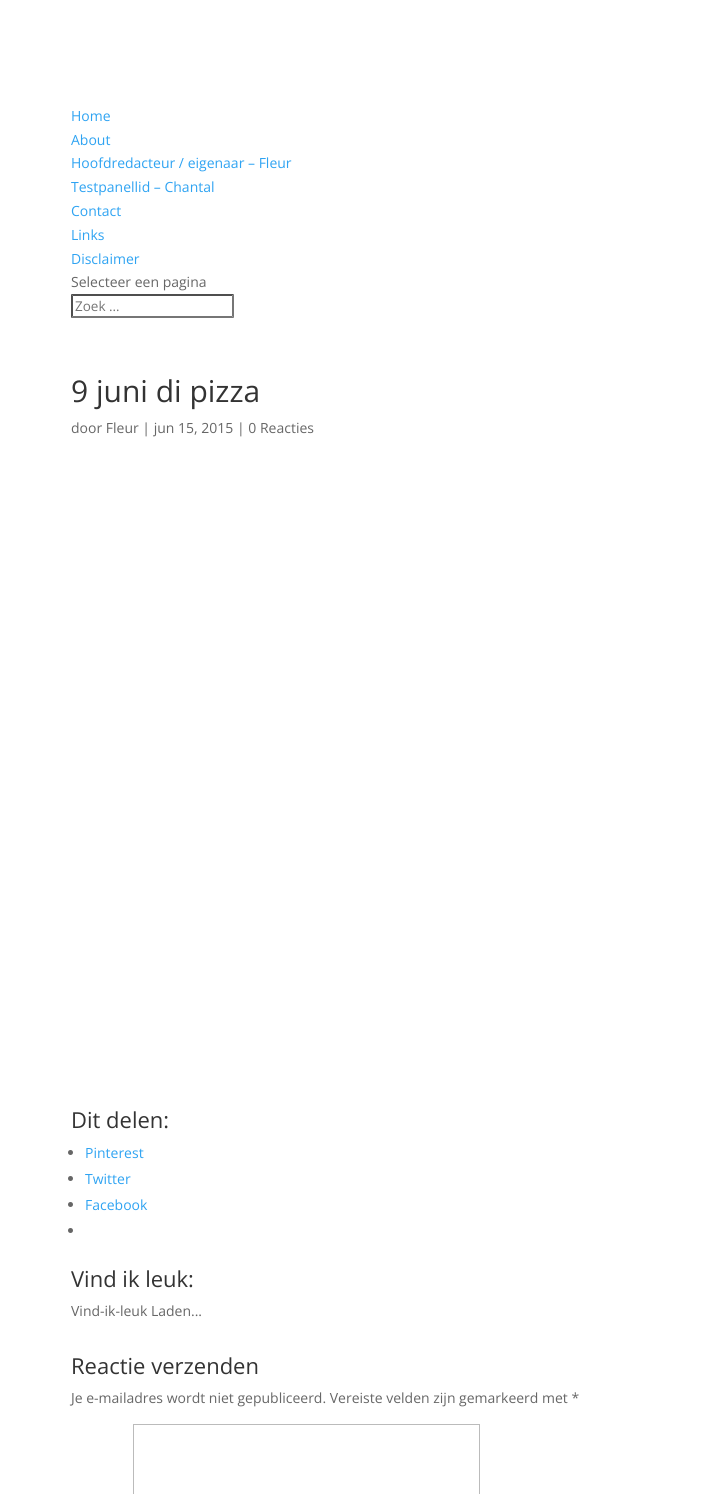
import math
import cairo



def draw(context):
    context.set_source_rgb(1, 1, 1)
    context.paint()
    context.set_source_rgb(79 / 255, 79 / 255, 79 / 255)
    context.new_path()
    context.move_to(71, 294)
    context.line_to(234, 294)
    context.line_to(232, 296)
    context.line_to(73, 296)
    context.close_path()
    context.fill()
    context.set_source_rgb(118 / 255, 118 / 255, 118 / 255)
    context.new_path()
    context.move_to(234, 294)
    context.line_to(234, 318)
    context.line_to(232, 316)
    context.line_to(232, 296)
    context.close_path()
    context.fill()
    context.new_path()
    context.move_to(234, 318)
    context.line_to(71, 318)
    context.line_to(73, 316)
    context.line_to(232, 316)
    context.close_path()
    context.fill()
    context.set_source_rgb(79 / 255, 79 / 255, 79 / 255)
    context.new_path()
    context.move_to(71, 318)
    context.line_to(71, 294)
    context.line_to(73, 296)
    context.line_to(73, 316)
    context.close_path()
    context.fill()
    context.set_source_rgb(102 / 255, 102 / 255, 102 / 255)
    context.arc(70.5, 1152.5, 2.5, 0, 2 * math.pi)
    context.fill()
    context.arc(70.5, 1178.5, 2.5, 0, 2 * math.pi)
    context.fill()
    context.arc(70.5, 1204.5, 2.5, 0, 2 * math.pi)
    context.fill()
    context.arc(70.5, 1230.5, 2.5, 0, 2 * math.pi)
    context.fill()
    context.rectangle(133.5, 1424.5, 346, 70)
    context.set_source_rgb(187 / 255, 187 / 255, 187 / 255)
    context.set_line_width(1)
    context.stroke()
    context.select_font_face("Open Sans")
    context.set_font_size(14)
    context.set_source_rgb(46 / 255, 163 / 255, 242 / 255)
    context.move_to(71, 121)
    context.show_text("Home")
    context.move_to(71, 145)
    context.show_text("About")
    context.move_to(71, 168)
    context.show_text("Hoofdredacteur / eigenaar – Fleur")
    context.move_to(71, 192)
    context.show_text("Testpanellid – Chantal")
    context.move_to(71, 216)
    context.show_text("Contact")
    context.move_to(71, 240)
    context.show_text("Links")
    context.move_to(71, 264)
    context.show_text("Disclaimer")
    context.set_source_rgb(102 / 255, 102 / 255, 102 / 255)
    context.move_to(71, 287)
    context.show_text("Selecteer een pagina")
    context.set_font_size(13.5)
    context.set_source_rgb(117 / 255, 117 / 255, 117 / 255)
    context.move_to(75, 311)
    context.show_text("Zoek …")
    context.set_font_size(30)
    context.set_source_rgb(51 / 255, 51 / 255, 51 / 255)
    context.move_to(71, 402)
    context.show_text("9 juni di pizza")
    context.set_font_size(14)
    context.set_source_rgb(102 / 255, 102 / 255, 102 / 255)
    context.move_to(71, 433)
    context.show_text("door Fleur | jun 15, 2015 | 0 Reacties")
    context.set_font_size(22)
    context.set_source_rgb(51 / 255, 51 / 255, 51 / 255)
    context.move_to(71, 1128)
    context.show_text("Dit delen:")
    context.set_font_size(14)
    context.set_source_rgb(46 / 255, 163 / 255, 242 / 255)
    context.move_to(85, 1158)
    context.show_text("Pinterest")
    context.move_to(85, 1184)
    context.show_text("Twitter")
    context.move_to(85, 1210)
    context.show_text("Facebook")
    context.set_font_size(22)
    context.set_source_rgb(51 / 255, 51 / 255, 51 / 255)
    context.move_to(71, 1287)
    context.show_text("Vind ik leuk:")
    context.set_font_size(14)
    context.set_source_rgb(102 / 255, 102 / 255, 102 / 255)
    context.move_to(71, 1316)
    context.show_text("Vind-ik-leuk Laden...")
    context.set_font_size(22)
    context.set_source_rgb(51 / 255, 51 / 255, 51 / 255)
    context.move_to(71, 1374)
    context.show_text("Reactie verzenden")
    context.set_font_size(14)
    context.set_source_rgb(102 / 255, 102 / 255, 102 / 255)
    context.move_to(71, 1403)
    context.show_text("Je e-mailadres wordt niet gepubliceerd. Vereiste velden zijn gemarkeerd met *")


surface = cairo.ImageSurface(cairo.Format.RGB24, 706, 1494)
context = cairo.Context(surface)
options = cairo.FontOptions()
options.set_hint_metrics(cairo.HintMetrics.OFF)
options.set_hint_style(cairo.HintStyle.NONE)
context.set_font_options(options)
context.set_miter_limit(4)
draw(context)
surface.write_to_png("out.png")
